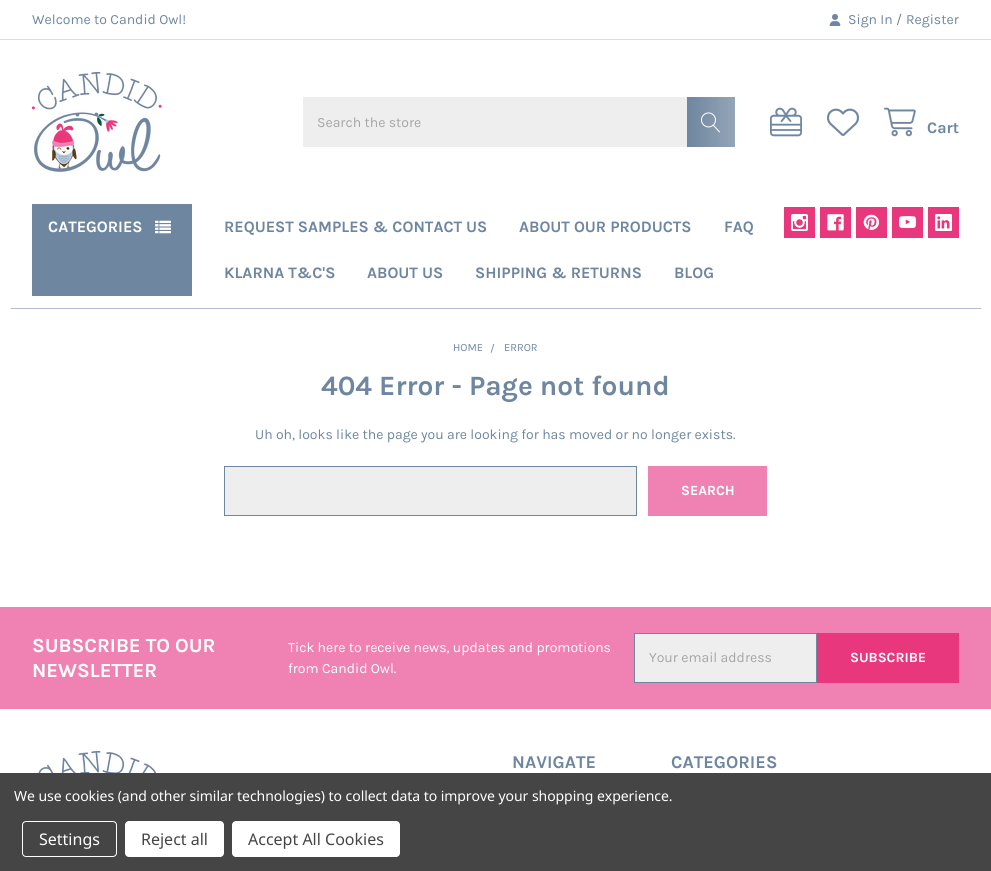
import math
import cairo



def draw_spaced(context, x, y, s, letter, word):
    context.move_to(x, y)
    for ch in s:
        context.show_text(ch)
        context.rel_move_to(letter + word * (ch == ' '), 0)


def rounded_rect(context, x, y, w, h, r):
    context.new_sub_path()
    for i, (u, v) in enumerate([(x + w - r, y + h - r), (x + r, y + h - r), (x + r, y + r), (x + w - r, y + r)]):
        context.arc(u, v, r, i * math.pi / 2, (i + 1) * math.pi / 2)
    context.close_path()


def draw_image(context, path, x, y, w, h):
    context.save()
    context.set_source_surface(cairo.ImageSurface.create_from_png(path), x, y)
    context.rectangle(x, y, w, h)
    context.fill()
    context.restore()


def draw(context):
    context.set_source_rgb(1, 1, 1)
    context.paint()
    context.set_source_rgb(220 / 255, 220 / 255, 220 / 255)
    context.rectangle(0, 39, 991, 1)
    context.fill()
    draw_image(context, "images/1.png", 829, 14, 12, 12)
    draw_image(context, "images/2.png", 32, 72, 130, 100)
    context.set_source_rgb(238 / 255, 238 / 255, 238 / 255)
    context.rectangle(303, 97, 384, 50)
    context.fill()
    gradient = cairo.LinearGradient(687, 122, 735, 122)
    gradient.add_color_stop_rgba(0, 110 / 255, 134 / 255, 160 / 255, 1)
    gradient.add_color_stop_rgba(1, 148 / 255, 165 / 255, 183 / 255, 1)
    context.set_source(gradient)
    context.rectangle(687, 97, 48, 50)
    context.fill()
    draw_image(context, "images/3.png", 701, 112, 19, 21)
    draw_image(context, "images/4.png", 770, 107, 32, 30)
    draw_image(context, "images/5.png", 827, 108, 32, 28)
    draw_image(context, "images/6.png", 884, 107, 32, 30)
    context.set_source_rgb(110 / 255, 134 / 255, 160 / 255)
    context.rectangle(32, 204, 160, 92)
    context.fill()
    draw_image(context, "images/7.png", 155, 220, 16, 14)
    context.set_source_rgb(232 / 255, 55 / 255, 125 / 255)
    context.rectangle(784, 207, 31, 31)
    context.fill()
    draw_image(context, "images/8.png", 791, 214, 17, 17)
    context.rectangle(820, 207, 31, 31)
    context.fill()
    draw_image(context, "images/9.png", 827, 214, 17, 17)
    context.rectangle(856, 207, 31, 31)
    context.fill()
    draw_image(context, "images/10.png", 863, 214, 16, 16)
    context.rectangle(892, 207, 31, 31)
    context.fill()
    draw_image(context, "images/11.png", 899, 216, 17, 13)
    context.rectangle(928, 207, 31, 31)
    context.fill()
    draw_image(context, "images/12.png", 935, 214, 17, 17)
    context.set_source_rgb(180 / 255, 186 / 255, 209 / 255)
    context.rectangle(11, 308, 970, 1)
    context.fill()
    context.set_source_rgb(238 / 255, 238 / 255, 238 / 255)
    context.rectangle(224.5, 466.5, 412, 49)
    context.fill_preserve()
    context.set_source_rgb(110 / 255, 134 / 255, 160 / 255)
    context.set_line_width(1)
    context.stroke()
    context.set_source_rgb(240 / 255, 130 / 255, 179 / 255)
    context.rectangle(648, 466, 119, 50)
    context.fill()
    context.rectangle(0, 607, 991, 102)
    context.fill()
    context.set_source_rgb(238 / 255, 238 / 255, 238 / 255)
    context.rectangle(634.5, 633.5, 182, 49)
    context.fill_preserve()
    context.set_source_rgb(110 / 255, 134 / 255, 160 / 255)
    context.stroke()
    context.set_source_rgb(232 / 255, 55 / 255, 125 / 255)
    context.rectangle(817, 633, 142, 50)
    context.fill()
    draw_image(context, "images/13.png", 38, 751, 119, 22)
    context.set_source_rgb(69 / 255, 69 / 255, 69 / 255)
    context.rectangle(0, 773, 991, 98)
    context.fill()
    rounded_rect(context, 22.5, 821.5, 94, 35, 3.5)
    context.set_source_rgb(1, 1, 1)
    context.stroke()
    rounded_rect(context, 125, 821, 99, 36, 4)
    context.fill()
    rounded_rect(context, 232, 821, 168, 36, 4)
    context.fill()
    context.select_font_face("Karla")
    context.set_font_size(14)
    context.set_source_rgb(110 / 255, 134 / 255, 160 / 255)
    context.move_to(32, 24)
    context.show_text("Welcome to Candid Owl!")
    context.move_to(848, 24)
    context.show_text("Sign In")
    context.move_to(896, 24)
    context.show_text("/")
    context.move_to(906, 24)
    context.show_text("Register")
    context.set_source_rgb(165 / 255, 165 / 255, 165 / 255)
    context.move_to(317, 127)
    context.show_text("Search the store")
    context.select_font_face("Karla", cairo.FontSlant.NORMAL, cairo.FontWeight.BOLD)
    context.set_font_size(16)
    context.set_source_rgb(110 / 255, 134 / 255, 160 / 255)
    context.move_to(927, 133)
    context.show_text("Cart")
    context.set_source_rgb(1, 1, 1)
    context.move_to(48, 232)
    context.show_text("CATEGORIES")
    context.set_source_rgb(110 / 255, 134 / 255, 160 / 255)
    context.move_to(224, 232)
    context.show_text("REQUEST SAMPLES & CONTACT US")
    context.move_to(519, 232)
    context.show_text("ABOUT OUR PRODUCTS")
    context.move_to(724, 232)
    context.show_text("FAQ")
    context.move_to(224, 278)
    context.show_text("KLARNA T&C'S")
    context.move_to(367, 278)
    context.show_text("ABOUT US")
    context.move_to(475, 278)
    context.show_text("SHIPPING & RETURNS")
    context.move_to(674, 278)
    context.show_text("BLOG")
    context.select_font_face("Karla")
    context.set_font_size(11)
    context.move_to(453, 351)
    context.show_text("HOME")
    context.move_to(490, 352)
    context.show_text("/")
    context.move_to(504, 351)
    context.show_text("ERROR")
    context.select_font_face("Karla", cairo.FontSlant.NORMAL, cairo.FontWeight.BOLD)
    context.set_font_size(28)
    context.move_to(321, 395)
    context.show_text("404 Error - Page not found")
    context.select_font_face("Karla")
    context.set_font_size(14)
    context.move_to(255, 439)
    context.show_text("Uh oh, looks like the page you are looking for has moved or no longer exists.")
    context.select_font_face("Karla", cairo.FontSlant.NORMAL, cairo.FontWeight.BOLD)
    context.set_source_rgb(1, 1, 1)
    context.move_to(681, 495)
    context.show_text("SEARCH")
    context.set_font_size(20)
    context.move_to(32, 652)
    context.show_text("SUBSCRIBE TO OUR")
    context.move_to(32, 677)
    context.show_text("NEWSLETTER")
    context.select_font_face("Karla")
    context.set_font_size(14)
    context.move_to(288, 652)
    context.show_text("Tick here to receive news, updates and promotions")
    context.move_to(288, 673)
    context.show_text("from Candid Owl.")
    context.set_source_rgb(165 / 255, 165 / 255, 165 / 255)
    context.move_to(649, 662)
    context.show_text("Your email address")
    context.select_font_face("Karla", cairo.FontSlant.NORMAL, cairo.FontWeight.BOLD)
    context.set_source_rgb(1, 1, 1)
    context.move_to(850, 662)
    context.show_text("SUBSCRIBE")
    context.set_font_size(18)
    context.set_source_rgb(110 / 255, 134 / 255, 160 / 255)
    context.move_to(512, 768)
    context.show_text("NAVIGATE")
    context.move_to(671, 768)
    context.show_text("CATEGORIES")
    context.select_font_face("Noto Sans")
    context.set_font_size(14)
    context.set_source_rgb(1, 1, 1)
    draw_spaced(context, 14, 801, "We use cookies (and other similar technologies) to collect data to improve your shopping experience.", -0.05, 0)
    context.set_font_size(16)
    context.move_to(39, 845)
    context.show_text("Settings")
    context.set_source_rgb(69 / 255, 69 / 255, 69 / 255)
    context.move_to(141, 845)
    context.show_text("Reject all")
    context.move_to(248, 845)
    context.show_text("Accept All Cookies")


surface = cairo.ImageSurface(cairo.Format.RGB24, 991, 871)
context = cairo.Context(surface)
options = cairo.FontOptions()
options.set_hint_metrics(cairo.HintMetrics.OFF)
options.set_hint_style(cairo.HintStyle.NONE)
context.set_font_options(options)
context.set_miter_limit(4)
draw(context)
surface.write_to_png("out.png")
